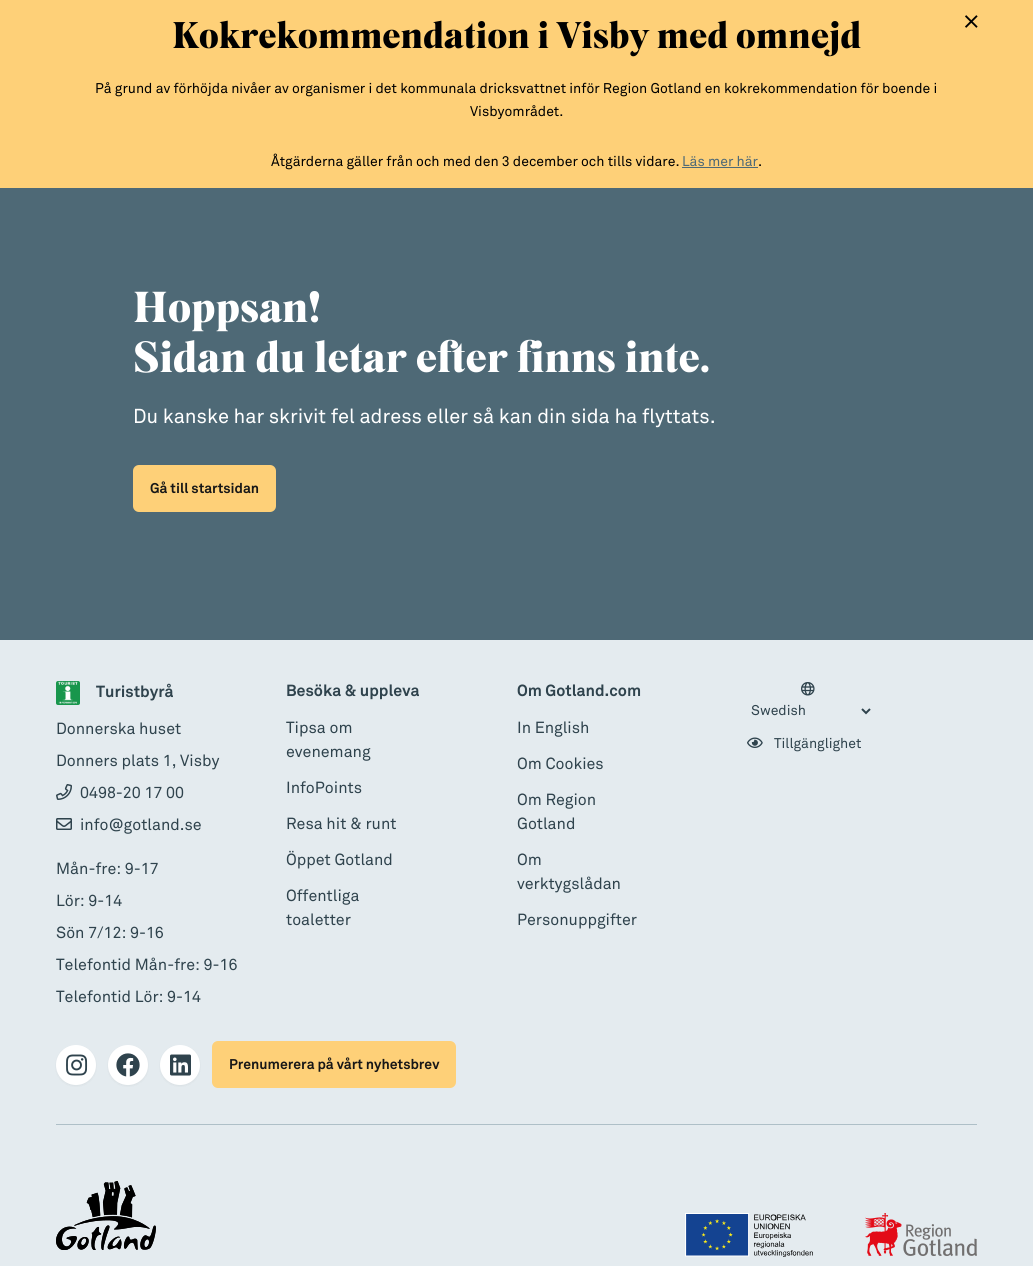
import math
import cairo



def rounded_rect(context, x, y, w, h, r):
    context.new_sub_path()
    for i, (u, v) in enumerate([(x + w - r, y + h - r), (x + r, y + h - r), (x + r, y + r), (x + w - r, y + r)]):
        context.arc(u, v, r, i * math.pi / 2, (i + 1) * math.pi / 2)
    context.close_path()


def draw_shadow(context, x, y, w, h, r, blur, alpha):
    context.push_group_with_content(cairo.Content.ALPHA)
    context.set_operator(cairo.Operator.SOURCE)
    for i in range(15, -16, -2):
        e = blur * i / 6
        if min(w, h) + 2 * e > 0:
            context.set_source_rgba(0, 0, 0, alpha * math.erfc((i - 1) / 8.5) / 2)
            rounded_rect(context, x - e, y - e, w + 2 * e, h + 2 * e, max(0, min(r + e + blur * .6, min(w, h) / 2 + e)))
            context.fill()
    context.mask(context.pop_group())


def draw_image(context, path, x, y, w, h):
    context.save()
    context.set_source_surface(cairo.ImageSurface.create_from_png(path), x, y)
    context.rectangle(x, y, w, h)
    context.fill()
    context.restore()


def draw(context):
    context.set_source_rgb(78 / 255, 105 / 255, 118 / 255)
    context.paint()
    context.set_source_rgb(254 / 255, 208 / 255, 120 / 255)
    context.rectangle(0, 0, 1033, 188)
    context.fill()
    context.set_source_rgb(78 / 255, 105 / 255, 118 / 255)
    context.rectangle(682, 167, 76, 1)
    context.fill()
    draw_image(context, "images/1.png", 965, 15, 13, 13)
    context.set_source_rgb(254 / 255, 208 / 255, 120 / 255)
    rounded_rect(context, 133, 465, 143, 47, 6)
    context.fill()
    context.set_source_rgb(228 / 255, 235 / 255, 239 / 255)
    context.rectangle(0, 640, 1033, 626)
    context.fill()
    context.set_source_rgb(174 / 255, 191 / 255, 199 / 255)
    context.rectangle(56, 1124, 921, 1)
    context.fill()
    draw_image(context, "images/2.png", 56, 681, 24, 24)
    draw_image(context, "images/3.png", 56, 784, 16, 16)
    draw_image(context, "images/4.png", 56, 818, 16, 12)
    draw_image(context, "images/5.png", 801, 682, 14, 14)
    context.new_path()
    context.move_to(862, 709)
    context.line_to(866, 713)
    context.line_to(870, 709)
    context.set_source_rgb(47 / 255, 67 / 255, 77 / 255)
    context.stroke()
    draw_image(context, "images/6.png", 747, 737, 16, 11)
    context.set_source_rgb(0, 0, 0)
    draw_shadow(context, 56, 1046, 40, 40, 20, 1, 0.05)
    context.set_source_rgb(1, 1, 1)
    context.arc(76, 1065, 20, 0, 2 * math.pi)
    context.fill()
    draw_image(context, "images/7.png", 66, 1054, 22, 22)
    context.set_source_rgb(0, 0, 0)
    draw_shadow(context, 108, 1046, 40, 40, 20, 1, 0.05)
    context.set_source_rgb(1, 1, 1)
    context.arc(128, 1065, 20, 0, 2 * math.pi)
    context.fill()
    draw_image(context, "images/8.png", 116, 1053, 24, 24)
    context.set_source_rgb(0, 0, 0)
    draw_shadow(context, 160, 1046, 40, 40, 20, 1, 0.05)
    context.set_source_rgb(1, 1, 1)
    context.arc(180, 1065, 20, 0, 2 * math.pi)
    context.fill()
    draw_image(context, "images/9.png", 170, 1054, 21, 22)
    context.set_source_rgb(254 / 255, 208 / 255, 120 / 255)
    rounded_rect(context, 212, 1041, 244, 47, 6)
    context.fill()
    draw_image(context, "images/10.png", 56, 1181, 100, 69)
    draw_image(context, "images/11.png", 56, 1181, 100, 69)
    draw_image(context, "images/12.png", 685, 1213, 128, 44)
    draw_image(context, "images/13.png", 865, 1213, 112, 44)
    context.select_font_face("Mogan")
    context.set_font_size(36)
    context.set_source_rgb(0, 0, 0)
    context.move_to(172, 48)
    context.show_text("Kokrekommendation i Visby med omnejd")
    context.select_font_face("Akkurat")
    context.set_font_size(14)
    context.move_to(95, 93)
    context.show_text("På grund av förhöjda nivåer av organismer i det kommunala dricksvattnet inför Region Gotland en kokrekommendation för boende i")
    context.move_to(470, 116)
    context.show_text("Visbyområdet.")
    context.move_to(271, 166)
    context.show_text("Åtgärderna gäller från och med den 3 december och tills vidare.")
    context.set_source_rgb(78 / 255, 105 / 255, 118 / 255)
    context.move_to(682, 166)
    context.show_text("Läs mer här")
    context.set_source_rgb(0, 0, 0)
    context.move_to(758, 166)
    context.show_text(".")
    context.select_font_face("Mogan")
    context.set_font_size(42)
    context.set_source_rgb(1, 1, 1)
    context.move_to(133, 322)
    context.show_text("Hoppsan!")
    context.move_to(133, 372)
    context.show_text("Sidan du letar efter finns inte.")
    context.select_font_face("Akkurat")
    context.set_font_size(20)
    context.move_to(133, 423)
    context.show_text("Du kanske har skrivit fel adress eller så kan din sida ha flyttats.")
    context.select_font_face("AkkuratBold", cairo.FontSlant.NORMAL, cairo.FontWeight.BOLD)
    context.set_font_size(14)
    context.set_source_rgb(23 / 255, 23 / 255, 23 / 255)
    context.move_to(150, 493)
    context.show_text("Gå till startsidan")
    context.set_font_size(16)
    context.set_source_rgb(47 / 255, 67 / 255, 77 / 255)
    context.move_to(96, 697)
    context.show_text("Turistbyrå")
    context.select_font_face("Akkurat")
    context.move_to(56, 734)
    context.show_text("Donnerska huset")
    context.move_to(56, 766)
    context.show_text("Donners plats 1, Visby")
    context.move_to(80, 798)
    context.show_text("0498-20 17 00")
    context.move_to(80, 830)
    context.show_text("info@gotland.se")
    context.move_to(56, 874)
    context.show_text("Mån-fre: 9-17")
    context.move_to(56, 906)
    context.show_text("Lör: 9-14")
    context.move_to(56, 938)
    context.show_text("Sön 7/12: 9-16")
    context.move_to(56, 970)
    context.show_text("Telefontid Mån-fre: 9-16")
    context.move_to(56, 1002)
    context.show_text("Telefontid Lör: 9-14")
    context.select_font_face("AkkuratBold", cairo.FontSlant.NORMAL, cairo.FontWeight.BOLD)
    context.move_to(286, 696)
    context.show_text("Besöka & uppleva")
    context.select_font_face("Akkurat")
    context.move_to(286, 733)
    context.show_text("Tipsa om")
    context.move_to(286, 757)
    context.show_text("evenemang")
    context.move_to(286, 793)
    context.show_text("InfoPoints")
    context.move_to(286, 829)
    context.show_text("Resa hit & runt")
    context.move_to(286, 865)
    context.show_text("Öppet Gotland")
    context.move_to(286, 901)
    context.show_text("Offentliga")
    context.move_to(286, 925)
    context.show_text("toaletter")
    context.select_font_face("AkkuratBold", cairo.FontSlant.NORMAL, cairo.FontWeight.BOLD)
    context.move_to(517, 696)
    context.show_text("Om Gotland.com")
    context.select_font_face("Akkurat")
    context.move_to(517, 733)
    context.show_text("In English")
    context.move_to(517, 769)
    context.show_text("Om Cookies")
    context.move_to(517, 805)
    context.show_text("Om Region")
    context.move_to(517, 829)
    context.show_text("Gotland")
    context.move_to(517, 865)
    context.show_text("Om")
    context.move_to(517, 889)
    context.show_text("verktygslådan")
    context.move_to(517, 925)
    context.show_text("Personuppgifter")
    context.set_font_size(14)
    context.move_to(751, 715)
    context.show_text("Swedish")
    context.move_to(774, 748)
    context.show_text("Tillgänglighet")
    context.select_font_face("AkkuratBold", cairo.FontSlant.NORMAL, cairo.FontWeight.BOLD)
    context.set_source_rgb(23 / 255, 23 / 255, 23 / 255)
    context.move_to(229, 1069)
    context.show_text("Prenumerera på vårt nyhetsbrev")


surface = cairo.ImageSurface(cairo.Format.RGB24, 1033, 1266)
context = cairo.Context(surface)
options = cairo.FontOptions()
options.set_hint_metrics(cairo.HintMetrics.OFF)
options.set_hint_style(cairo.HintStyle.NONE)
context.set_font_options(options)
context.set_miter_limit(4)
draw(context)
surface.write_to_png("out.png")
